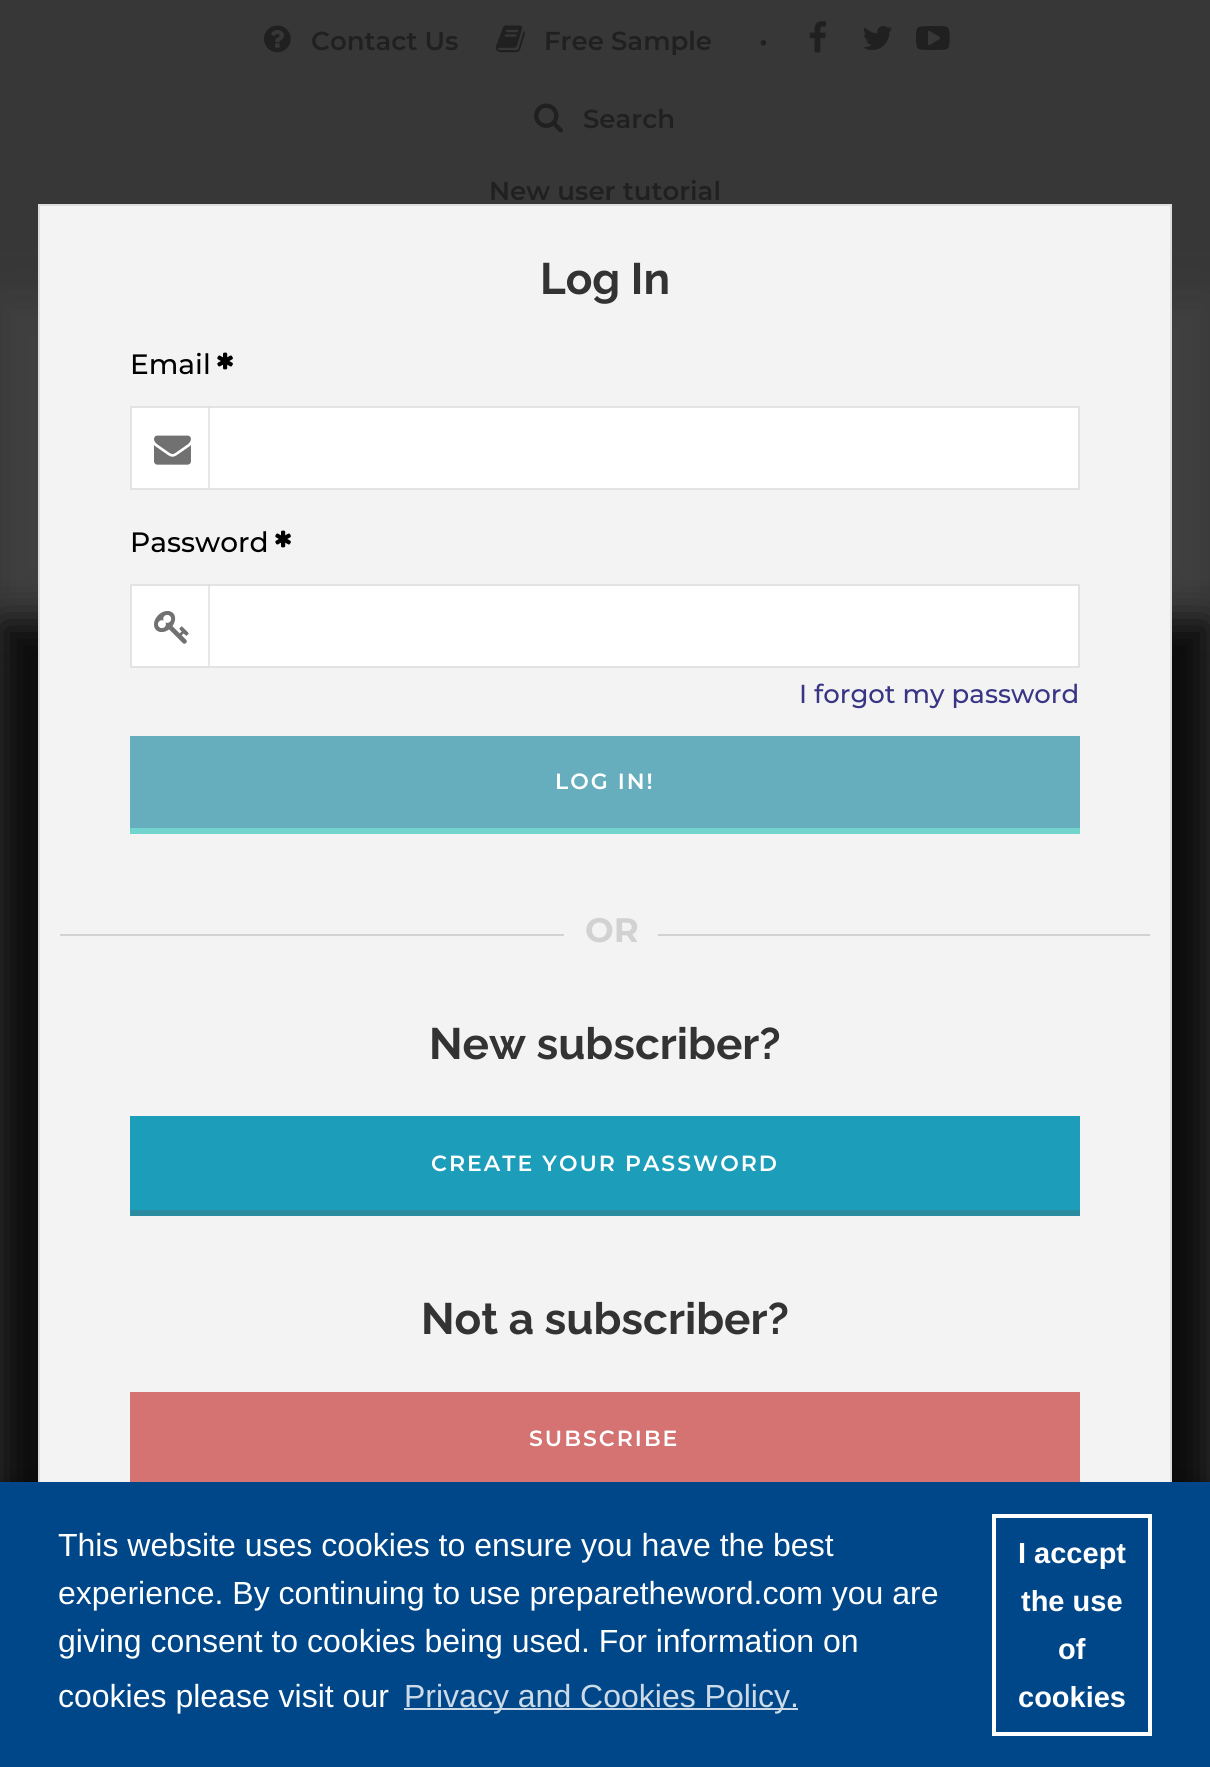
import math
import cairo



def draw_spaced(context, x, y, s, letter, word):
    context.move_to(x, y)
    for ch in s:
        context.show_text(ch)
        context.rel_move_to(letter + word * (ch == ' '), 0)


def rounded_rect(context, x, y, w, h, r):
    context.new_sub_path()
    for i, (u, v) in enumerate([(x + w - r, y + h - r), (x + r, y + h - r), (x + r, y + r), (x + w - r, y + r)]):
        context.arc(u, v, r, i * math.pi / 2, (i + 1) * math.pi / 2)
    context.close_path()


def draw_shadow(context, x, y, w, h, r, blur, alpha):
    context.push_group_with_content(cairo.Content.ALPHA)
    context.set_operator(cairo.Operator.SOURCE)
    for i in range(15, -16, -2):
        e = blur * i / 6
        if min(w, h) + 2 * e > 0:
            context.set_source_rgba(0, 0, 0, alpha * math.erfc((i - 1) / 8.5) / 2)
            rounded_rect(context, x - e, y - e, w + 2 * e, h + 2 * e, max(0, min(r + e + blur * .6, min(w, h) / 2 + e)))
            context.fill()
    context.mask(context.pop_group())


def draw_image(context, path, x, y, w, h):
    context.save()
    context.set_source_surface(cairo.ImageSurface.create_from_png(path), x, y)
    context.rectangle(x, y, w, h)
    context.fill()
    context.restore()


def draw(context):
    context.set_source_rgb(55 / 255, 55 / 255, 55 / 255)
    context.paint()
    draw_image(context, "images/1.png", 264, 25, 27, 28)
    draw_image(context, "images/2.png", 496, 25, 29, 28)
    draw_image(context, "images/3.png", 809, 21, 17, 32)
    draw_image(context, "images/4.png", 863, 26, 30, 24)
    draw_image(context, "images/5.png", 916, 26, 34, 24)
    draw_image(context, "images/6.png", 534, 103, 29, 30)
    context.set_source_rgb(64 / 255, 64 / 255, 64 / 255)
    draw_shadow(context, 0, 300, 1210, 322, 0, 20, 1)
    context.set_source_rgb(10 / 255, 10 / 255, 10 / 255)
    draw_shadow(context, 0, 622, 1210, 1040, 0, 20, 1)
    context.set_source_rgb(4 / 255, 4 / 255, 4 / 255)
    draw_shadow(context, 0, 1506, 1210, 156, 0, 20, 1)
    context.set_source_rgb(243 / 255, 243 / 255, 243 / 255)
    context.rectangle(40, 206, 1130, 1276)
    context.fill()
    context.rectangle(39, 205, 1132, 1358)
    context.set_source_rgb(221 / 255, 221 / 255, 221 / 255)
    context.stroke()
    draw_image(context, "images/7.png", 217, 352, 16, 18)
    context.set_source_rgb(1, 1, 1)
    context.rectangle(131, 407, 948, 82)
    context.fill_preserve()
    context.set_source_rgb(227 / 255, 227 / 255, 227 / 255)
    context.stroke()
    context.set_source_rgba(221 / 255, 221 / 255, 221 / 255, 0.7)
    context.rectangle(208, 406, 2, 82)
    context.fill()
    draw_image(context, "images/8.png", 154, 435, 37, 30)
    draw_image(context, "images/7.png", 275, 530, 16, 18)
    context.set_source_rgb(1, 1, 1)
    context.rectangle(131, 585, 948, 82)
    context.fill_preserve()
    context.set_source_rgb(227 / 255, 227 / 255, 227 / 255)
    context.stroke()
    context.set_source_rgba(221 / 255, 221 / 255, 221 / 255, 0.7)
    context.rectangle(208, 584, 2, 82)
    context.fill()
    draw_image(context, "images/9.png", 154, 611, 35, 33)
    context.set_source_rgb(102 / 255, 174 / 255, 189 / 255)
    context.rectangle(130, 736, 950, 92)
    context.fill()
    context.set_source_rgb(114 / 255, 213 / 255, 205 / 255)
    context.rectangle(130, 828, 950, 6)
    context.fill()
    context.set_source_rgb(210 / 255, 210 / 255, 210 / 255)
    context.rectangle(60, 934, 1090, 2)
    context.fill()
    context.set_source_rgb(243 / 255, 243 / 255, 243 / 255)
    context.rectangle(564, 934, 94, 2)
    context.fill()
    context.set_source_rgb(28 / 255, 157 / 255, 186 / 255)
    context.rectangle(130, 1116, 950, 94)
    context.fill()
    context.set_source_rgb(43 / 255, 139 / 255, 161 / 255)
    context.rectangle(130, 1210, 950, 6)
    context.fill()
    context.set_source_rgb(213 / 255, 114 / 255, 114 / 255)
    context.rectangle(130, 1392, 950, 90)
    context.fill()
    context.set_source_rgb(0, 71 / 255, 137 / 255)
    context.rectangle(0, 1482, 1210, 285)
    context.fill()
    context.set_source_rgb(204 / 255, 218 / 255, 231 / 255)
    context.rectangle(404, 1708, 394, 2)
    context.fill()
    context.rectangle(994, 1516, 156, 218)
    context.set_source_rgb(1, 1, 1)
    context.set_line_width(4)
    context.stroke()
    context.select_font_face("Montserrat SemiBold")
    context.set_font_size(26)
    context.set_source_rgb(32 / 255, 32 / 255, 32 / 255)
    context.move_to(311, 50)
    context.show_text("Contact Us")
    context.move_to(544, 50)
    context.show_text("Free Sample")
    context.move_to(759, 50)
    context.show_text("•")
    context.move_to(583, 128)
    context.show_text("Search")
    context.move_to(489, 200)
    context.show_text("New user tutorial")
    context.select_font_face("Raleway", cairo.FontSlant.NORMAL, cairo.FontWeight.BOLD)
    context.set_font_size(44)
    context.set_source_rgb(51 / 255, 51 / 255, 51 / 255)
    context.move_to(540, 294)
    context.show_text("Log In")
    context.select_font_face("Montserrat Medium")
    context.set_font_size(28)
    context.set_source_rgb(0, 0, 0)
    context.move_to(130, 374)
    context.show_text("Email")
    context.move_to(130, 552)
    context.show_text("Password")
    context.set_font_size(26)
    context.set_source_rgb(56 / 255, 53 / 255, 132 / 255)
    context.move_to(799, 703)
    context.show_text("I forgot my password")
    context.select_font_face("Montserrat SemiBold")
    context.set_font_size(22)
    context.set_source_rgb(1, 1, 1)
    draw_spaced(context, 555, 789, "LOG IN!", 2, 0)
    context.select_font_face("Montserrat", cairo.FontSlant.NORMAL, cairo.FontWeight.BOLD)
    context.set_font_size(34)
    context.set_source_rgb(210 / 255, 210 / 255, 210 / 255)
    context.move_to(585, 942)
    context.show_text("OR")
    context.select_font_face("Raleway", cairo.FontSlant.NORMAL, cairo.FontWeight.BOLD)
    context.set_font_size(44)
    context.set_source_rgb(51 / 255, 51 / 255, 51 / 255)
    context.move_to(429, 1059)
    context.show_text("New subscriber?")
    context.select_font_face("Montserrat SemiBold")
    context.set_font_size(22)
    context.set_source_rgb(1, 1, 1)
    draw_spaced(context, 431, 1171, "CREATE YOUR PASSWORD", 2, 0)
    context.select_font_face("Raleway", cairo.FontSlant.NORMAL, cairo.FontWeight.BOLD)
    context.set_font_size(44)
    context.set_source_rgb(51 / 255, 51 / 255, 51 / 255)
    context.move_to(421, 1334)
    context.show_text("Not a subscriber?")
    context.select_font_face("Montserrat SemiBold")
    context.set_font_size(22)
    context.set_source_rgb(1, 1, 1)
    draw_spaced(context, 529, 1446, "SUBSCRIBE", 2, 0)
    context.select_font_face("Liberation Sans")
    context.set_font_size(32)
    context.move_to(58, 1556)
    context.show_text("This website uses cookies to ensure you have the best")
    context.move_to(58, 1604)
    context.show_text("experience. By continuing to use preparetheword.com you are")
    context.move_to(58, 1652)
    context.show_text("giving consent to cookies being used. For information on")
    context.move_to(58, 1707)
    context.show_text("cookies please visit our")
    context.set_source_rgb(204 / 255, 218 / 255, 231 / 255)
    context.move_to(404, 1707)
    context.show_text("Privacy and Cookies Policy.")
    context.select_font_face("Liberation Sans", cairo.FontSlant.NORMAL, cairo.FontWeight.BOLD)
    context.set_font_size(29)
    context.set_source_rgb(1, 1, 1)
    context.move_to(1018, 1563)
    context.show_text("I accept")
    context.move_to(1021, 1611)
    context.show_text("the use")
    context.move_to(1058, 1659)
    context.show_text("of")
    context.move_to(1018, 1707)
    context.show_text("cookies")


surface = cairo.ImageSurface(cairo.Format.RGB24, 1210, 1767)
context = cairo.Context(surface)
options = cairo.FontOptions()
options.set_hint_metrics(cairo.HintMetrics.OFF)
options.set_hint_style(cairo.HintStyle.NONE)
context.set_font_options(options)
context.set_miter_limit(4)
draw(context)
surface.write_to_png("out.png")
